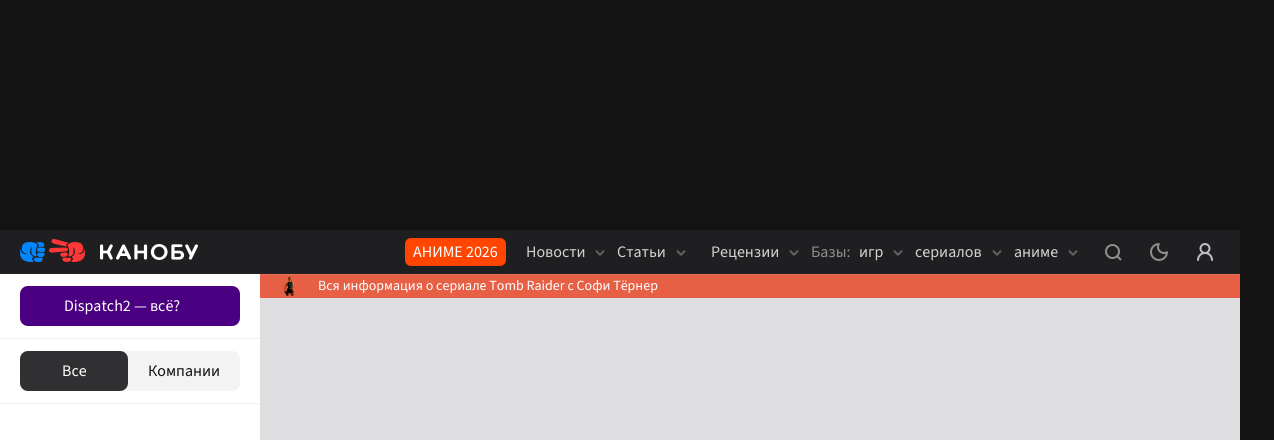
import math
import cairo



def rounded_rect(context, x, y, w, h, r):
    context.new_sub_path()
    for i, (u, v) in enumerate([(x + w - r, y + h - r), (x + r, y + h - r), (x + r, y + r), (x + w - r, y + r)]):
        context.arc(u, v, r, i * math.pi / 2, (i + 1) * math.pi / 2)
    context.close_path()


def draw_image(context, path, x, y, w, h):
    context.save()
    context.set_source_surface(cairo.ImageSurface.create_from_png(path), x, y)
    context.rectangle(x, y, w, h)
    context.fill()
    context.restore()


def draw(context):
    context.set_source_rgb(19 / 255, 19 / 255, 20 / 255)
    context.paint()
    context.set_source_rgb(31 / 255, 31 / 255, 33 / 255)
    context.rectangle(0, 230, 1240, 44)
    context.fill()
    draw_image(context, "images/1.png", 20, 239, 178, 23)
    context.set_source_rgb(1, 69 / 255, 0)
    rounded_rect(context, 405, 238, 101, 28, 6)
    context.fill()
    draw_image(context, "images/2.png", 595, 250, 10, 6)
    draw_image(context, "images/2.png", 676, 250, 10, 6)
    draw_image(context, "images/2.png", 789, 250, 10, 6)
    draw_image(context, "images/2.png", 893, 250, 10, 6)
    draw_image(context, "images/2.png", 992, 250, 10, 6)
    draw_image(context, "images/2.png", 1068, 250, 10, 6)
    draw_image(context, "images/3.png", 1105, 244, 17, 17)
    draw_image(context, "images/4.png", 1150, 243, 18, 18)
    draw_image(context, "images/5.png", 1197, 243, 16, 18)
    context.set_source_rgb(231 / 255, 96 / 255, 69 / 255)
    context.rectangle(260, 275, 980, 23)
    context.fill()
    context.set_source_rgb(233 / 255, 112 / 255, 88 / 255)
    context.rectangle(260, 274, 980, 1)
    context.fill()
    draw_image(context, "images/6.png", 284, 276, 11, 20)
    context.set_source_rgb(1, 1, 1)
    context.rectangle(0, 274, 260, 166)
    context.fill()
    context.set_source_rgb(240 / 255, 240 / 255, 242 / 255)
    context.rectangle(0, 338, 260, 1)
    context.fill()
    context.set_source_rgb(75 / 255, 0, 130 / 255)
    rounded_rect(context, 20, 286, 220, 40, 8)
    context.fill()
    context.set_source_rgb(240 / 255, 240 / 255, 242 / 255)
    context.rectangle(0, 403, 260, 1)
    context.fill()
    context.set_source_rgb(243 / 255, 243 / 255, 243 / 255)
    rounded_rect(context, 20, 351, 220, 40, 8)
    context.fill()
    context.set_source_rgb(48 / 255, 48 / 255, 51 / 255)
    rounded_rect(context, 20, 351, 108, 40, 8)
    context.fill()
    context.set_source_rgb(222 / 255, 222 / 255, 224 / 255)
    context.rectangle(260, 298, 980, 142)
    context.fill()
    context.select_font_face("Source Sans 3")
    context.set_font_size(16)
    context.set_source_rgb(1, 1, 1)
    context.move_to(413, 257)
    context.show_text("АНИМЕ 2026")
    context.set_source_rgb(210 / 255, 210 / 255, 211 / 255)
    context.move_to(526, 257)
    context.show_text("Новости")
    context.move_to(617, 257)
    context.show_text("Статьи")
    context.move_to(711, 257)
    context.show_text("Рецензии")
    context.set_source_rgb(143 / 255, 143 / 255, 144 / 255)
    context.move_to(811, 257)
    context.show_text("Базы:")
    context.set_source_rgb(210 / 255, 210 / 255, 211 / 255)
    context.move_to(859, 257)
    context.show_text("игр")
    context.move_to(915, 257)
    context.show_text("сериалов")
    context.move_to(1014, 257)
    context.show_text("аниме")
    context.set_font_size(14)
    context.set_source_rgb(1, 1, 1)
    context.move_to(318, 290)
    context.show_text("Вся информация о сериале Tomb Raider с Софи Тёрнер")
    context.set_font_size(16)
    context.move_to(64, 311)
    context.show_text("Dispatch2 — всё?")
    context.move_to(62, 376)
    context.show_text("Все")
    context.set_source_rgb(17 / 255, 17 / 255, 18 / 255)
    context.move_to(148, 376)
    context.show_text("Компании")


surface = cairo.ImageSurface(cairo.Format.RGB24, 1274, 440)
context = cairo.Context(surface)
options = cairo.FontOptions()
options.set_hint_metrics(cairo.HintMetrics.OFF)
options.set_hint_style(cairo.HintStyle.NONE)
context.set_font_options(options)
context.set_miter_limit(4)
draw(context)
surface.write_to_png("out.png")
